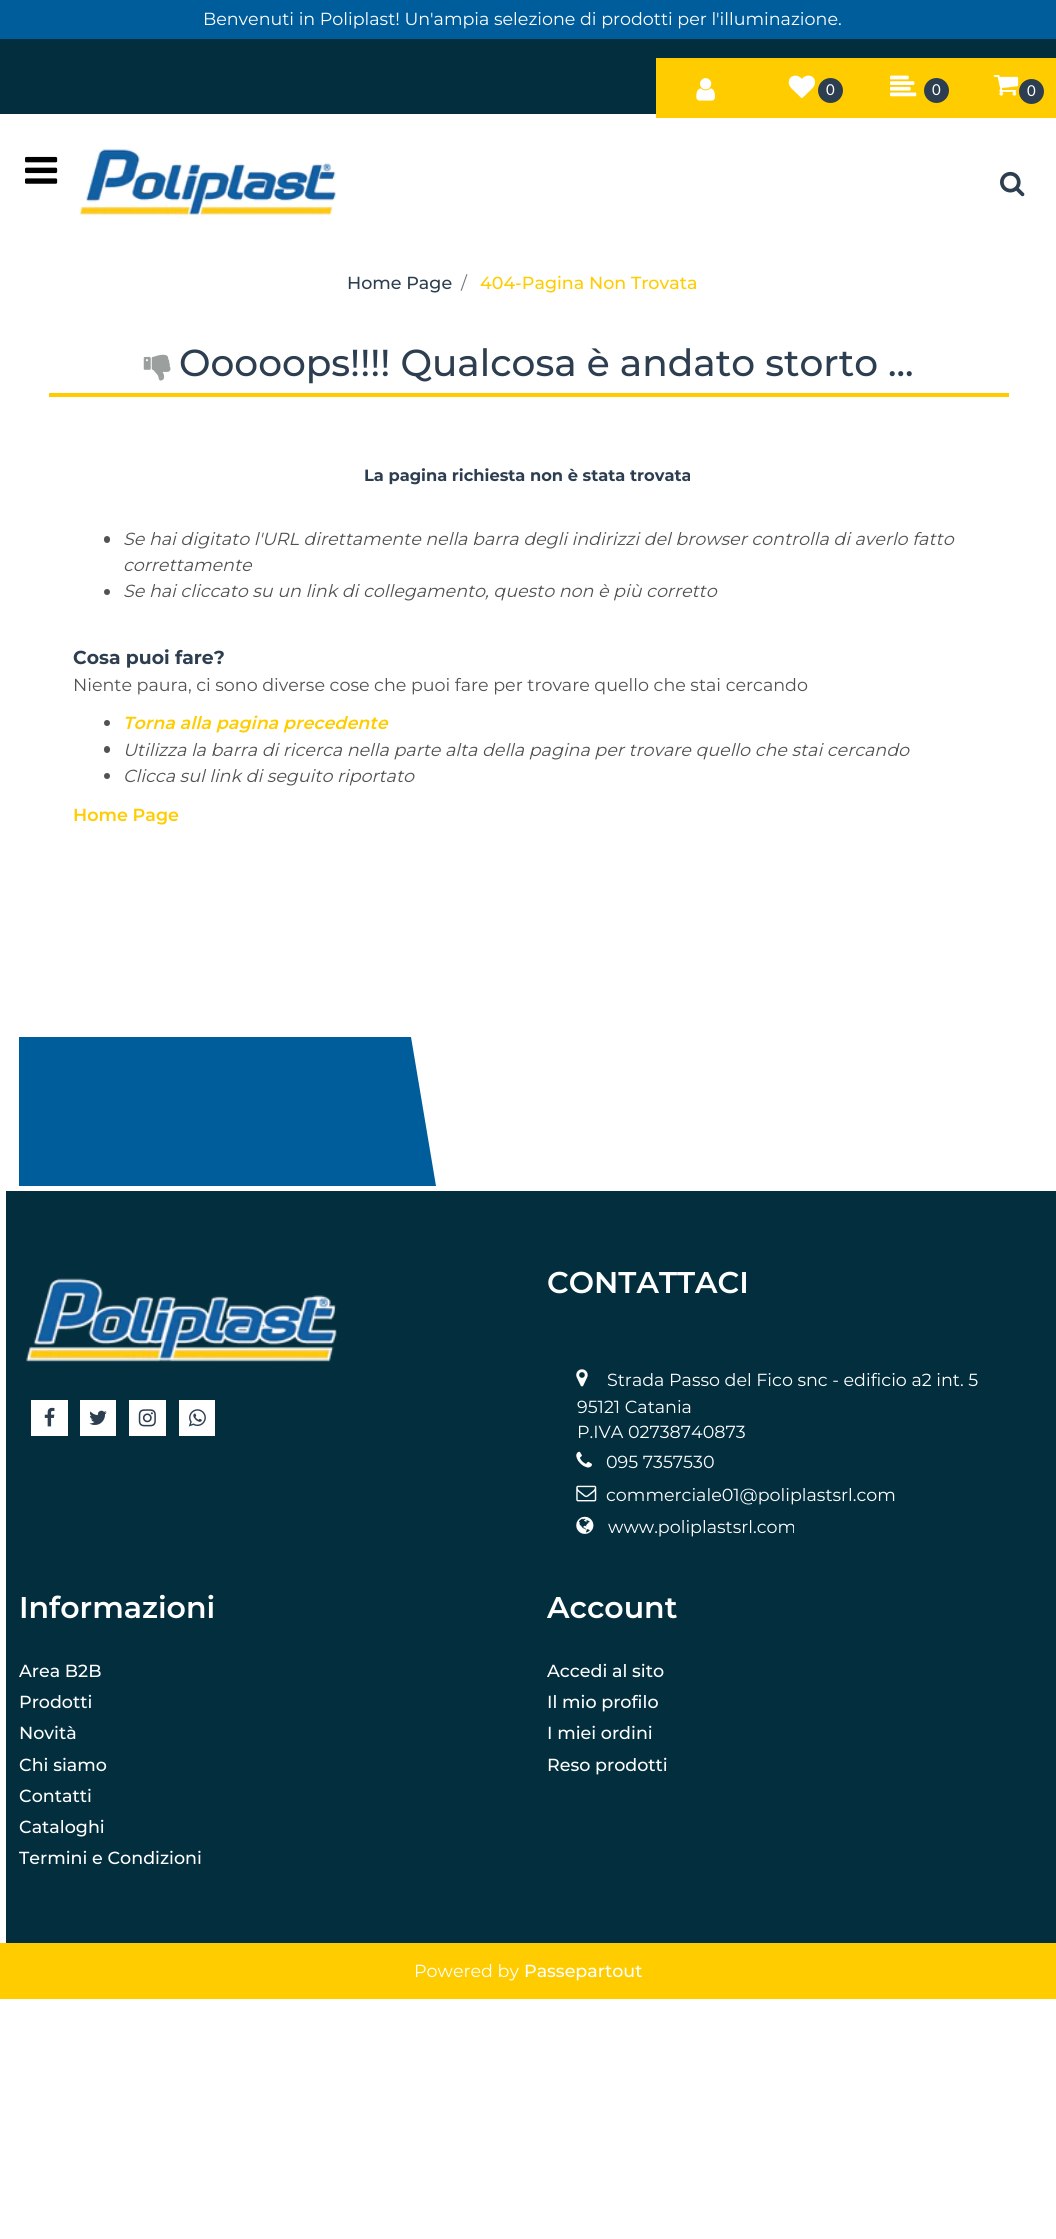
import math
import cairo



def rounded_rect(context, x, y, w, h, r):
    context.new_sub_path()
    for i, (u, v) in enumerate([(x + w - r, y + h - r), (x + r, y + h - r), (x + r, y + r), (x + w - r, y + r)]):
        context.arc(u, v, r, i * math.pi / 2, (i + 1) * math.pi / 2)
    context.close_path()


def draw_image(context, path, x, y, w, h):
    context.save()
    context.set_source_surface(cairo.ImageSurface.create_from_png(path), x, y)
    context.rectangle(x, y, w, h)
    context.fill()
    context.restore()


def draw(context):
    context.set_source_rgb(1, 1, 1)
    context.paint()
    context.set_source_rgb(0, 93 / 255, 156 / 255)
    context.rectangle(0, 0, 1056, 39)
    context.fill()
    context.set_source_rgb(2 / 255, 46 / 255, 62 / 255)
    context.rectangle(0, 39, 1056, 75)
    context.fill()
    context.set_source_rgb(1, 204 / 255, 0)
    context.rectangle(656, 58, 400, 60)
    context.fill()
    draw_image(context, "images/1.png", 696, 78, 19, 23)
    draw_image(context, "images/2.png", 788, 75, 27, 24)
    context.set_source_rgb(45 / 255, 62 / 255, 80 / 255)
    context.arc(830.5, 90.5, 12.5, 0, 2 * math.pi)
    context.fill()
    draw_image(context, "images/3.png", 890, 75, 27, 22)
    context.arc(936.5, 90.5, 12.5, 0, 2 * math.pi)
    context.fill()
    draw_image(context, "images/4.png", 993, 75, 26, 21)
    context.arc(1031.5, 91.5, 12.5, 0, 2 * math.pi)
    context.fill()
    draw_image(context, "images/5.png", 25, 156, 33, 28)
    draw_image(context, "images/6.png", 79, 148, 257, 69)
    draw_image(context, "images/7.png", 1000, 171, 25, 26)
    context.set_source_rgb(1, 204 / 255, 0)
    context.rectangle(49, 393, 960, 4)
    context.fill()
    draw_image(context, "images/8.png", 143, 354, 28, 27)
    context.set_source_rgb(82 / 255, 82 / 255, 82 / 255)
    rounded_rect(context, 104, 536, 6, 7, 3)
    context.fill()
    context.arc(107, 592, 3, 0, 2 * math.pi)
    context.fill()
    context.arc(107, 723, 3, 0, 2 * math.pi)
    context.fill()
    rounded_rect(context, 104, 746, 6, 7, 3)
    context.fill()
    context.arc(107, 776, 3, 0, 2 * math.pi)
    context.fill()
    context.set_source_rgb(0, 93 / 255, 156 / 255)
    context.new_path()
    context.move_to(411, 1037)
    context.line_to(436, 1186)
    context.line_to(19, 1186)
    context.line_to(19, 1037)
    context.close_path()
    context.fill()
    context.set_source_rgb(2 / 255, 46 / 255, 62 / 255)
    context.rectangle(6, 1191, 1050, 752)
    context.fill()
    draw_image(context, "images/9.png", 26, 1278, 311, 84)
    context.set_source_rgb(1, 1, 1)
    context.rectangle(31, 1400, 37, 36)
    context.fill()
    draw_image(context, "images/10.png", 44, 1407, 11, 20)
    context.rectangle(80, 1400, 36, 36)
    context.fill()
    draw_image(context, "images/11.png", 89, 1410, 18, 15)
    context.rectangle(129, 1400, 37, 36)
    context.fill()
    draw_image(context, "images/12.png", 138, 1409, 18, 18)
    context.rectangle(179, 1400, 36, 36)
    context.fill()
    draw_image(context, "images/13.png", 188, 1409, 18, 18)
    draw_image(context, "images/14.png", 576, 1369, 12, 18)
    draw_image(context, "images/15.png", 576, 1451, 16, 17)
    draw_image(context, "images/16.png", 576, 1485, 21, 17)
    draw_image(context, "images/17.png", 576, 1516, 18, 18)
    context.set_source_rgb(1, 204 / 255, 0)
    context.rectangle(0, 1943, 1056, 56)
    context.fill()
    context.select_font_face("Montserrat")
    context.set_font_size(17.5)
    context.set_source_rgb(1, 1, 1)
    context.move_to(203, 25)
    context.show_text("Benvenuti in Poliplast! Un'ampia selezione di prodotti per l'illuminazione.")
    context.select_font_face("Lato")
    context.set_font_size(15)
    context.move_to(826, 95)
    context.show_text("0")
    context.move_to(932, 95)
    context.show_text("0")
    context.move_to(1027, 96)
    context.show_text("0")
    context.select_font_face("Montserrat Medium")
    context.set_font_size(17.5)
    context.set_source_rgb(45 / 255, 62 / 255, 80 / 255)
    context.move_to(347, 289)
    context.show_text("Home Page")
    context.select_font_face("Montserrat")
    context.set_source_rgb(108 / 255, 117 / 255, 125 / 255)
    context.move_to(461, 289)
    context.show_text("/")
    context.select_font_face("Montserrat Medium")
    context.set_source_rgb(1, 204 / 255, 0)
    context.move_to(480, 289)
    context.show_text("404-Pagina Non Trovata")
    context.set_font_size(37.5)
    context.set_source_rgb(45 / 255, 62 / 255, 80 / 255)
    context.move_to(179, 376)
    context.show_text("Ooooops!!!! Qualcosa è andato storto ...")
    context.select_font_face("Montserrat", cairo.FontSlant.NORMAL, cairo.FontWeight.BOLD)
    context.set_font_size(16.25)
    context.move_to(364, 481)
    context.show_text("La pagina richiesta non è stata trovata")
    context.select_font_face("Montserrat", cairo.FontSlant.ITALIC)
    context.set_font_size(17.5)
    context.set_source_rgb(82 / 255, 82 / 255, 82 / 255)
    context.move_to(123, 545)
    context.show_text("Se hai digitato l'URL direttamente nella barra degli indirizzi del browser controlla di averlo fatto")
    context.move_to(123, 571)
    context.show_text("correttamente")
    context.move_to(123, 597)
    context.show_text("Se hai cliccato su un link di collegamento, questo non è più corretto")
    context.select_font_face("Montserrat", cairo.FontSlant.NORMAL, cairo.FontWeight.BOLD)
    context.set_font_size(18.75)
    context.set_source_rgb(45 / 255, 62 / 255, 80 / 255)
    context.move_to(73, 664)
    context.show_text("Cosa puoi fare?")
    context.select_font_face("Montserrat")
    context.set_font_size(17.5)
    context.set_source_rgb(82 / 255, 82 / 255, 82 / 255)
    context.move_to(73, 691)
    context.show_text("Niente paura, ci sono diverse cose che puoi fare per trovare quello che stai cercando")
    context.select_font_face("Montserrat SemiBold", cairo.FontSlant.ITALIC)
    context.set_source_rgb(1, 204 / 255, 0)
    context.move_to(123, 729)
    context.show_text("Torna alla pagina precedente")
    context.select_font_face("Montserrat", cairo.FontSlant.ITALIC)
    context.set_source_rgb(82 / 255, 82 / 255, 82 / 255)
    context.move_to(123, 756)
    context.show_text("Utilizza la barra di ricerca nella parte alta della pagina per trovare quello che stai cercando")
    context.move_to(123, 782)
    context.show_text("Clicca sul link di seguito riportato")
    context.select_font_face("Montserrat SemiBold")
    context.set_source_rgb(1, 204 / 255, 0)
    context.move_to(73, 821)
    context.show_text("Home Page")
    context.set_font_size(30)
    context.set_source_rgb(1, 1, 1)
    context.move_to(547, 1293)
    context.show_text("CONTATTACI")
    context.select_font_face("Montserrat")
    context.set_font_size(17.5)
    context.move_to(607, 1386)
    context.show_text("Strada Passo del Fico snc - edificio a2 int. 5")
    context.move_to(577, 1413)
    context.show_text("95121 Catania")
    context.move_to(577, 1438)
    context.show_text("P.IVA 02738740873")
    context.move_to(606, 1468)
    context.show_text("095 7357530")
    context.move_to(606, 1501)
    context.show_text("commerciale01@poliplastsrl.com")
    context.move_to(608, 1533)
    context.show_text("www.poliplastsrl.com")
    context.select_font_face("Montserrat SemiBold")
    context.set_font_size(30)
    context.move_to(19, 1618)
    context.show_text("Informazioni")
    context.select_font_face("Montserrat Medium")
    context.set_font_size(17.5)
    context.move_to(19, 1677)
    context.show_text("Area B2B")
    context.move_to(19, 1708)
    context.show_text("Prodotti")
    context.move_to(19, 1739)
    context.show_text("Novità")
    context.move_to(19, 1771)
    context.show_text("Chi siamo")
    context.move_to(19, 1802)
    context.show_text("Contatti")
    context.move_to(19, 1833)
    context.show_text("Cataloghi")
    context.move_to(19, 1864)
    context.show_text("Termini e Condizioni")
    context.select_font_face("Montserrat SemiBold")
    context.set_font_size(30)
    context.move_to(547, 1618)
    context.show_text("Account")
    context.select_font_face("Montserrat Medium")
    context.set_font_size(17.5)
    context.move_to(547, 1677)
    context.show_text("Accedi al sito")
    context.move_to(547, 1708)
    context.show_text("Il mio profilo")
    context.move_to(547, 1739)
    context.show_text("I miei ordini")
    context.move_to(547, 1771)
    context.show_text("Reso prodotti")
    context.select_font_face("Montserrat")
    context.move_to(414, 1977)
    context.show_text("Powered by")
    context.select_font_face("Montserrat Medium")
    context.move_to(524, 1977)
    context.show_text("Passepartout")


surface = cairo.ImageSurface(cairo.Format.RGB24, 1056, 2239)
context = cairo.Context(surface)
options = cairo.FontOptions()
options.set_hint_metrics(cairo.HintMetrics.OFF)
options.set_hint_style(cairo.HintStyle.NONE)
context.set_font_options(options)
context.set_miter_limit(4)
draw(context)
surface.write_to_png("out.png")
